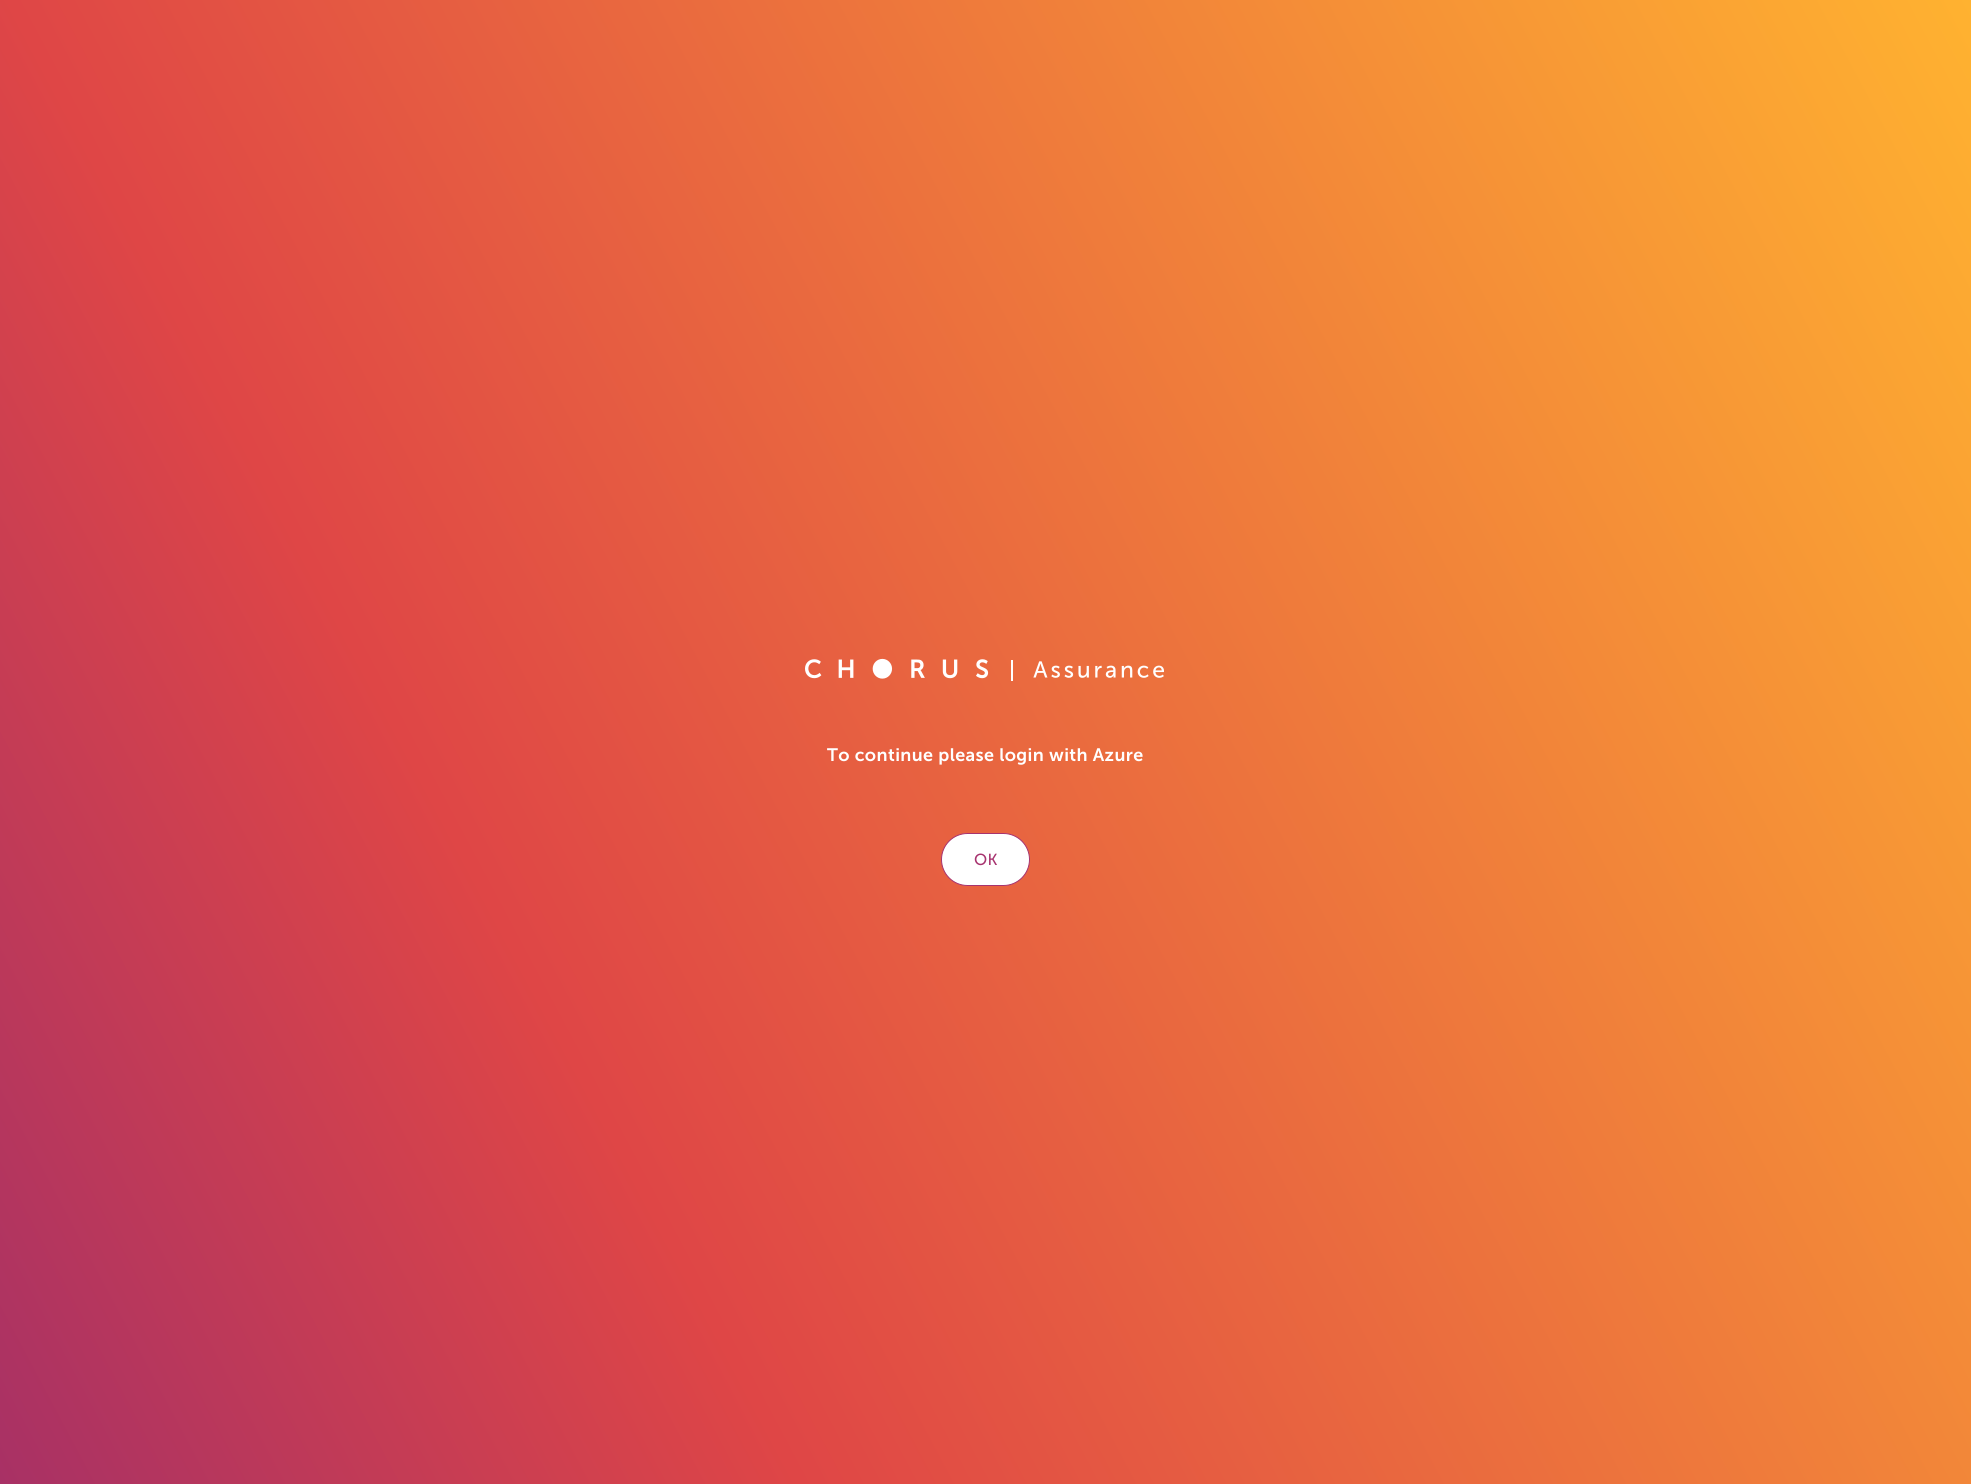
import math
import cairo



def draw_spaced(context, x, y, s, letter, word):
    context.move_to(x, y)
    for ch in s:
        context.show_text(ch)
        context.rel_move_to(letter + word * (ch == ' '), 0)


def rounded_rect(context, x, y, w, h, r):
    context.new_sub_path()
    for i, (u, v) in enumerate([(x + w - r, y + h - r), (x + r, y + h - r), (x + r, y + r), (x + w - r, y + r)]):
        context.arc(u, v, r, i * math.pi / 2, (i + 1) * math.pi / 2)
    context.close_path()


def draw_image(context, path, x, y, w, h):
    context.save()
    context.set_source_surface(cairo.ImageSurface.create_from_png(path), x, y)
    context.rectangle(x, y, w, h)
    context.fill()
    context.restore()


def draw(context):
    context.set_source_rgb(1, 1, 1)
    context.paint()
    gradient = cairo.LinearGradient(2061, 170, -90, 1314)
    gradient.add_color_stop_rgba(0, 1, 178 / 255, 48 / 255, 1)
    gradient.add_color_stop_rgba(0.71, 223 / 255, 70 / 255, 70 / 255, 1)
    gradient.add_color_stop_rgba(1, 168 / 255, 49 / 255, 101 / 255, 1)
    context.set_source(gradient)
    context.rectangle(0, 0, 1971, 1484)
    context.fill()
    draw_image(context, "images/1.png", 805, 658, 359, 23)
    context.set_source_rgb(1, 1, 1)
    rounded_rect(context, 941.5, 833.5, 88, 52, 26)
    context.fill_preserve()
    context.set_source_rgb(167 / 255, 51 / 255, 111 / 255)
    context.set_line_width(1)
    context.stroke()
    context.select_font_face("Museo Sans SemiBold")
    context.set_font_size(18)
    context.set_source_rgb(1, 1, 1)
    draw_spaced(context, 827, 761, "To continue please login with Azure", 0.4, 0)
    context.select_font_face("Museo Sans")
    context.set_font_size(16)
    context.set_source_rgb(167 / 255, 51 / 255, 111 / 255)
    draw_spaced(context, 974, 865, "OK", 0.4, 0)


surface = cairo.ImageSurface(cairo.Format.RGB24, 1971, 1484)
context = cairo.Context(surface)
options = cairo.FontOptions()
options.set_hint_metrics(cairo.HintMetrics.OFF)
options.set_hint_style(cairo.HintStyle.NONE)
context.set_font_options(options)
context.set_miter_limit(4)
draw(context)
surface.write_to_png("out.png")
